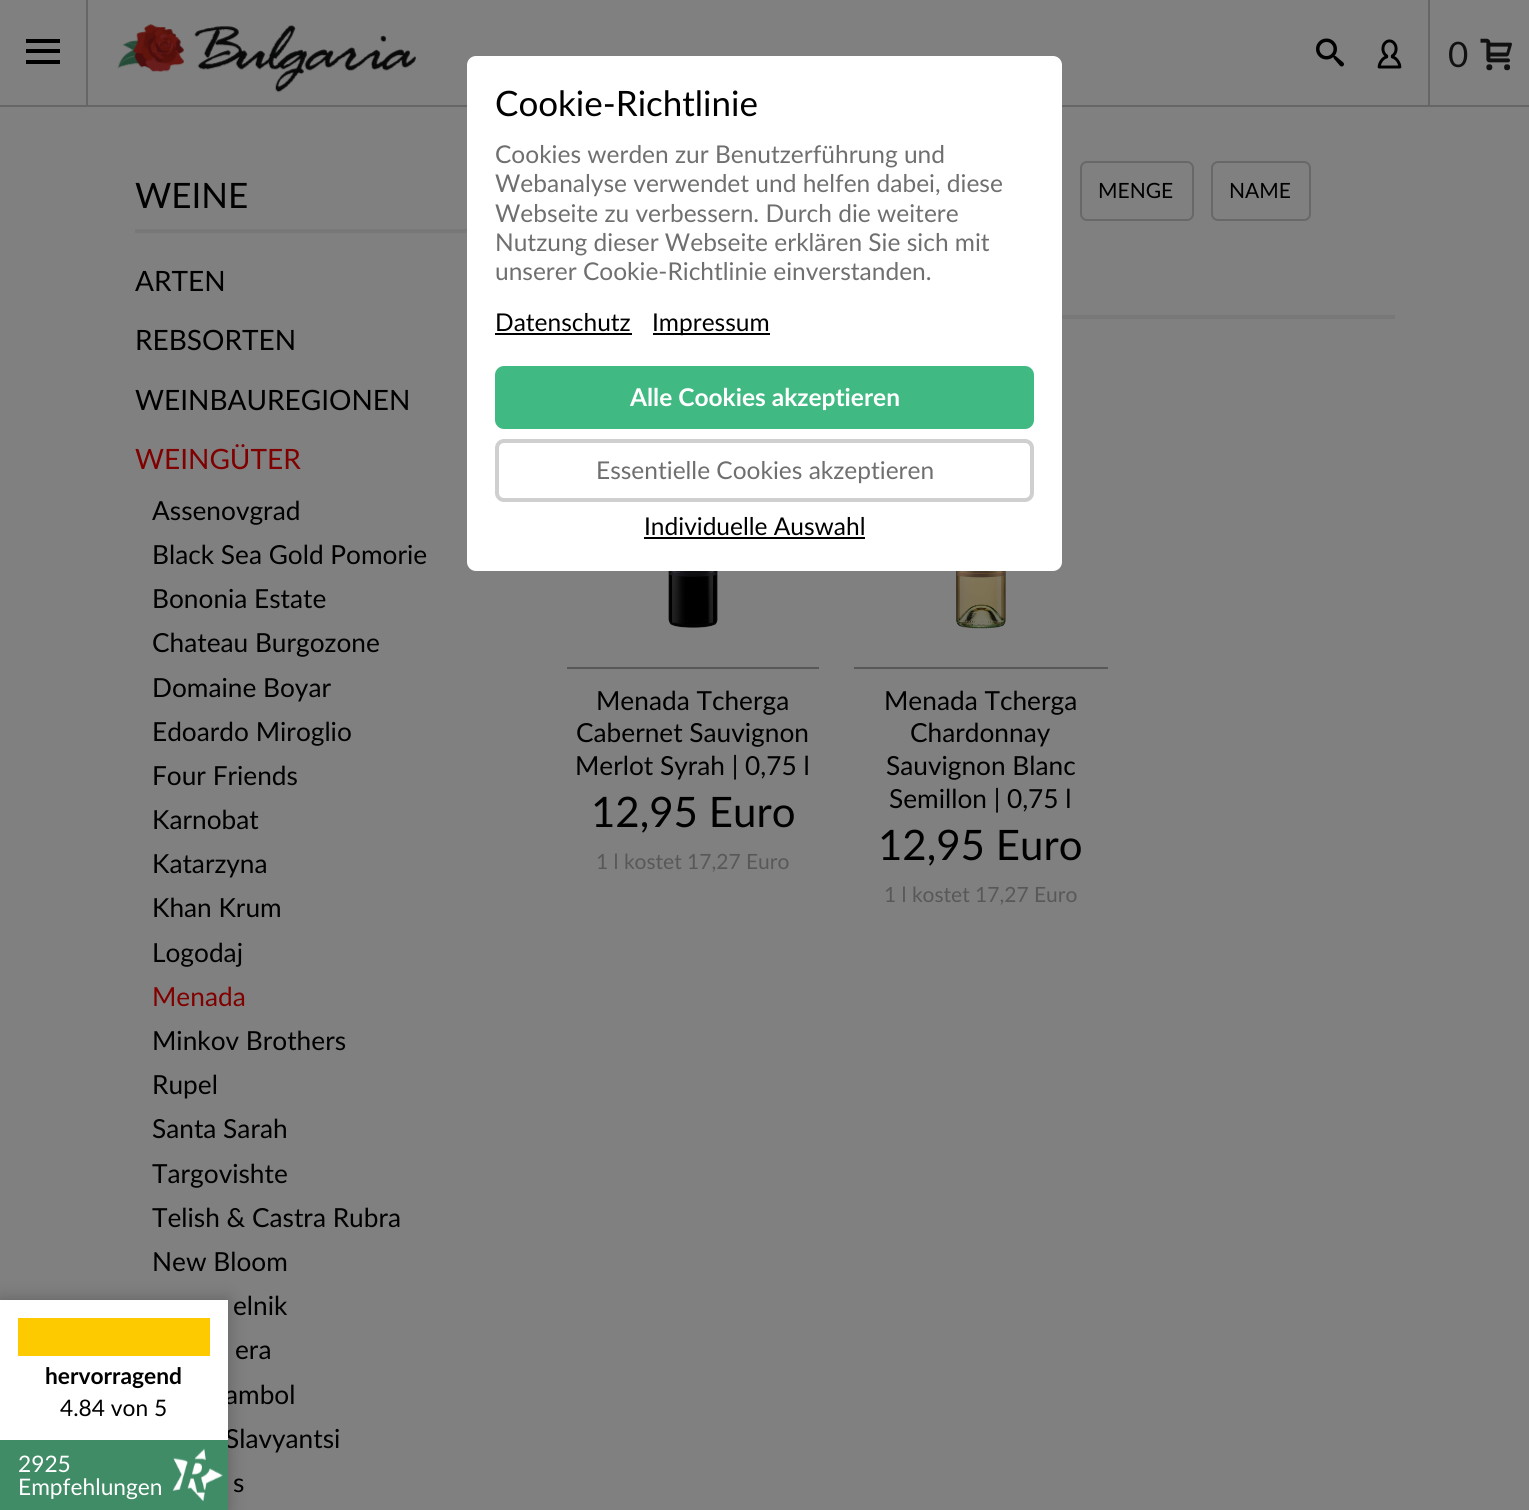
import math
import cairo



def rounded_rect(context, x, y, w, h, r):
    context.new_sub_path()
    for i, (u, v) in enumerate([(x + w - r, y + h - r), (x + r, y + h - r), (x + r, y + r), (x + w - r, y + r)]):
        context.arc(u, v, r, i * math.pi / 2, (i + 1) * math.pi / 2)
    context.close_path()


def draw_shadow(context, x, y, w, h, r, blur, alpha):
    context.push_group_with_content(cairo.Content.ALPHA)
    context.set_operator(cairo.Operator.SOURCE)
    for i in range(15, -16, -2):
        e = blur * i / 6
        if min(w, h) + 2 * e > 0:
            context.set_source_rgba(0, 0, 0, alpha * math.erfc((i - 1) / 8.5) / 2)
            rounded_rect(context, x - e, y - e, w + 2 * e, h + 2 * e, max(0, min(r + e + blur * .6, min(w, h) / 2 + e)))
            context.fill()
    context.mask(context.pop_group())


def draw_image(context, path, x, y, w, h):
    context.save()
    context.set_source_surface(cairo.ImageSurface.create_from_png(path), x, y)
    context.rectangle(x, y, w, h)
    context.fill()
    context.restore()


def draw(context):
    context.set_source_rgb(128 / 255, 128 / 255, 128 / 255)
    context.paint()
    context.set_source_rgb(102 / 255, 102 / 255, 102 / 255)
    context.rectangle(0, 105, 1529, 2)
    context.fill()
    context.rectangle(86, 0, 2, 105)
    context.fill()
    context.set_source_rgb(0, 0, 0)
    context.rectangle(26, 39, 34, 4)
    context.fill()
    context.rectangle(26, 49, 34, 4)
    context.fill()
    context.rectangle(26, 60, 34, 4)
    context.fill()
    draw_image(context, "images/1.png", 117, 24, 299, 69)
    draw_image(context, "images/2.png", 1316, 38, 28, 29)
    draw_image(context, "images/3.png", 1377, 39, 25, 30)
    context.set_source_rgb(102 / 255, 102 / 255, 102 / 255)
    context.rectangle(1428, 0, 2, 105)
    context.fill()
    draw_image(context, "images/4.png", 1480, 38, 32, 33)
    context.set_source_rgb(120 / 255, 120 / 255, 120 / 255)
    context.rectangle(135, 229, 332, 4)
    context.fill()
    context.rectangle(1062, 315, 333, 4)
    context.fill()
    rounded_rect(context, 1081, 162, 112, 58, 6)
    context.set_source_rgb(104 / 255, 104 / 255, 104 / 255)
    context.stroke()
    rounded_rect(context, 1212, 162, 98, 58, 6)
    context.stroke()
    draw_image(context, "images/5.png", 668, 571, 50, 57)
    context.set_source_rgb(88 / 255, 88 / 255, 88 / 255)
    context.rectangle(567, 667, 252, 2)
    context.fill()
    draw_image(context, "images/6.png", 956, 571, 50, 58)
    context.rectangle(854, 667, 254, 2)
    context.fill()
    context.set_source_rgb(1, 1, 1)
    rounded_rect(context, 467, 56, 595, 515, 9)
    context.fill()
    context.set_source_rgb(0, 0, 0)
    context.rectangle(495, 333, 137, 2)
    context.fill()
    context.rectangle(653, 333, 117, 2)
    context.fill()
    context.set_source_rgb(65 / 255, 185 / 255, 131 / 255)
    rounded_rect(context, 497, 368, 535, 59, 7)
    context.fill_preserve()
    context.set_line_width(4)
    context.stroke()
    rounded_rect(context, 497, 441, 535, 59, 7)
    context.set_source_rgb(207 / 255, 207 / 255, 207 / 255)
    context.stroke()
    context.set_source_rgb(0, 0, 0)
    context.rectangle(644, 537, 221, 2)
    context.fill()
    context.set_source_rgb(0, 0, 0)
    draw_shadow(context, 0, 1300, 228, 210, 0, 9, 0.25)
    context.select_font_face("Lato")
    context.set_font_size(35)
    context.set_source_rgb(17 / 255, 17 / 255, 17 / 255)
    context.move_to(1448, 67)
    context.show_text("0")
    context.set_source_rgb(0, 0, 0)
    context.move_to(135, 208)
    context.show_text("WEINE")
    context.set_font_size(28)
    context.move_to(135, 291)
    context.show_text("ARTEN")
    context.move_to(135, 350)
    context.show_text("REBSORTEN")
    context.move_to(135, 410)
    context.show_text("WEINBAUREGIONEN")
    context.set_source_rgb(128 / 255, 0, 0)
    context.move_to(135, 469)
    context.show_text("WEINGÜTER")
    context.set_font_size(26.25)
    context.set_source_rgb(0, 0, 0)
    context.move_to(152, 520)
    context.show_text("Assenovgrad")
    context.move_to(152, 564)
    context.show_text("Black Sea Gold Pomorie")
    context.move_to(152, 608)
    context.show_text("Bononia Estate")
    context.move_to(152, 652)
    context.show_text("Chateau Burgozone")
    context.move_to(152, 697)
    context.show_text("Domaine Boyar")
    context.move_to(152, 741)
    context.show_text("Edoardo Miroglio")
    context.move_to(152, 785)
    context.show_text("Four Friends")
    context.move_to(152, 829)
    context.show_text("Karnobat")
    context.move_to(152, 873)
    context.show_text("Katarzyna")
    context.move_to(152, 917)
    context.show_text("Khan Krum")
    context.move_to(152, 962)
    context.show_text("Logodaj")
    context.set_source_rgb(128 / 255, 0, 0)
    context.move_to(152, 1006)
    context.show_text("Menada")
    context.set_source_rgb(0, 0, 0)
    context.move_to(152, 1050)
    context.show_text("Minkov Brothers")
    context.move_to(152, 1094)
    context.show_text("Rupel")
    context.move_to(152, 1138)
    context.show_text("Santa Sarah")
    context.move_to(152, 1183)
    context.show_text("Targovishte")
    context.move_to(152, 1227)
    context.show_text("Telish & Castra Rubra")
    context.move_to(152, 1271)
    context.show_text("New Bloom")
    context.move_to(233, 1315)
    context.show_text("elnik")
    context.move_to(235, 1359)
    context.show_text("era")
    context.move_to(225, 1404)
    context.show_text("ambol")
    context.move_to(225, 1448)
    context.show_text("Slavyantsi")
    context.move_to(233, 1492)
    context.show_text("s")
    context.set_font_size(21)
    context.move_to(1098, 198)
    context.show_text("MENGE")
    context.move_to(1229, 198)
    context.show_text("NAME")
    context.set_font_size(26.25)
    context.move_to(596, 710)
    context.show_text("Menada Tcherga")
    context.move_to(576, 742)
    context.show_text("Cabernet Sauvignon")
    context.move_to(575, 775)
    context.show_text("Merlot Syrah | 0,75 l")
    context.set_font_size(42)
    context.move_to(591, 827)
    context.show_text("12,95 Euro")
    context.set_font_size(21)
    context.set_source_rgb(88 / 255, 88 / 255, 88 / 255)
    context.move_to(596, 869)
    context.show_text("1 l kostet 17,27 Euro")
    context.set_font_size(26.25)
    context.set_source_rgb(0, 0, 0)
    context.move_to(884, 710)
    context.show_text("Menada Tcherga")
    context.move_to(910, 742)
    context.show_text("Chardonnay")
    context.move_to(886, 775)
    context.show_text("Sauvignon Blanc")
    context.move_to(889, 808)
    context.show_text("Semillon | 0,75 l")
    context.set_font_size(42)
    context.move_to(878, 860)
    context.show_text("12,95 Euro")
    context.set_font_size(21)
    context.set_source_rgb(88 / 255, 88 / 255, 88 / 255)
    context.move_to(884, 902)
    context.show_text("1 l kostet 17,27 Euro")
    context.set_font_size(35)
    context.set_source_rgb(0, 0, 0)
    context.move_to(495, 116)
    context.show_text("Cookie-Richtlinie")
    context.set_font_size(24.5)
    context.set_source_rgb(111 / 255, 111 / 255, 111 / 255)
    context.move_to(495, 163)
    context.show_text("Cookies werden zur Benutzerführung und")
    context.move_to(495, 192)
    context.show_text("Webanalyse verwendet und helfen dabei, diese")
    context.move_to(495, 222)
    context.show_text("Webseite zu verbessern. Durch die weitere")
    context.move_to(495, 251)
    context.show_text("Nutzung dieser Webseite erklären Sie sich mit")
    context.move_to(495, 280)
    context.show_text("unserer Cookie-Richtlinie einverstanden.")
    context.set_source_rgb(0, 0, 0)
    context.move_to(495, 331)
    context.show_text("Datenschutz")
    context.move_to(652, 331)
    context.show_text("Impressum")
    context.select_font_face("Lato", cairo.FontSlant.NORMAL, cairo.FontWeight.BOLD)
    context.set_source_rgb(1, 1, 1)
    context.move_to(630, 406)
    context.show_text("Alle Cookies akzeptieren")
    context.select_font_face("Lato")
    context.set_source_rgb(111 / 255, 111 / 255, 111 / 255)
    context.move_to(596, 479)
    context.show_text("Essentielle Cookies akzeptieren")
    context.set_source_rgb(0, 0, 0)
    context.move_to(644, 535)
    context.show_text("Individuelle Auswahl")
    context.set_source_rgb(1, 1, 1)
    context.rectangle(0, 1300, 228, 140)
    context.fill()
    context.set_source_rgb(253 / 255, 202 / 255, 0)
    context.rectangle(18, 1318, 192, 38)
    context.fill()
    context.select_font_face("Lato", cairo.FontSlant.NORMAL, cairo.FontWeight.BOLD)
    context.set_font_size(22.75)
    context.set_source_rgb(0, 0, 0)
    context.move_to(45, 1384)
    context.show_text("hervorragend")
    context.select_font_face("Lato")
    context.move_to(60, 1416)
    context.show_text("4.84 von 5")
    context.set_source_rgb(63 / 255, 140 / 255, 102 / 255)
    context.rectangle(0, 1440, 228, 70)
    context.fill()
    draw_image(context, "images/7.png", 172, 1448, 51, 54)
    context.set_source_rgb(1, 1, 1)
    context.move_to(18, 1472)
    context.show_text("2925")
    context.move_to(18, 1495)
    context.show_text("Empfehlungen")


surface = cairo.ImageSurface(cairo.Format.RGB24, 1529, 1510)
context = cairo.Context(surface)
options = cairo.FontOptions()
options.set_hint_metrics(cairo.HintMetrics.OFF)
options.set_hint_style(cairo.HintStyle.NONE)
context.set_font_options(options)
context.set_miter_limit(4)
draw(context)
surface.write_to_png("out.png")
